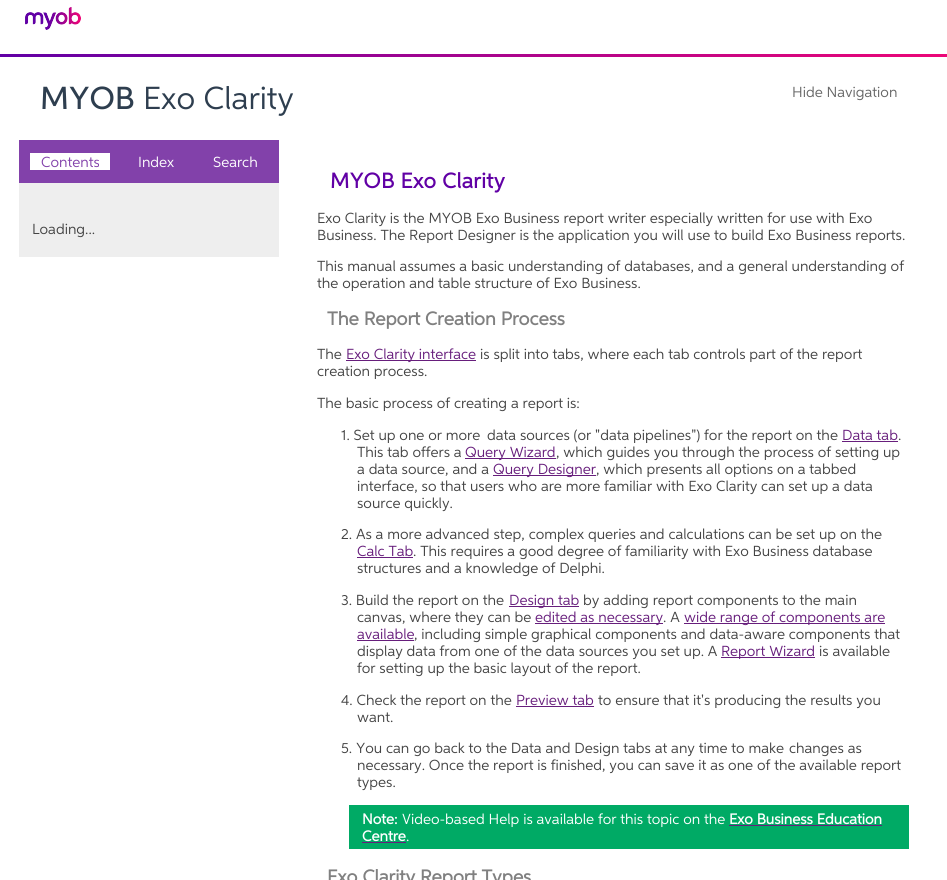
import math
import cairo



def draw_spaced(context, x, y, s, letter, word):
    context.move_to(x, y)
    for ch in s:
        context.show_text(ch)
        context.rel_move_to(letter + word * (ch == ' '), 0)


def draw_image(context, path, x, y, w, h):
    context.save()
    context.set_source_surface(cairo.ImageSurface.create_from_png(path), x, y)
    context.rectangle(x, y, w, h)
    context.fill()
    context.restore()


def draw(context):
    context.set_source_rgb(1, 1, 1)
    context.paint()
    draw_image(context, "images/1.png", 25, 7, 56, 23)
    gradient = cairo.LinearGradient(0, 56, 947, 55)
    gradient.add_color_stop_rgba(0, 97 / 255, 0, 165 / 255, 1)
    gradient.add_color_stop_rgba(1, 236 / 255, 6 / 255, 119 / 255, 1)
    context.set_source(gradient)
    context.rectangle(0, 54, 947, 3)
    context.fill()
    context.set_source_rgb(238 / 255, 238 / 255, 238 / 255)
    context.rectangle(19, 183, 260, 74)
    context.fill()
    context.set_source_rgb(130 / 255, 65 / 255, 170 / 255)
    context.rectangle(19, 140, 260, 43)
    context.fill()
    context.set_source_rgb(1, 1, 1)
    context.rectangle(30, 153, 80, 17)
    context.fill()
    context.set_source_rgb(103 / 255, 30 / 255, 124 / 255)
    context.rectangle(346, 360, 130, 1)
    context.fill()
    context.rectangle(842, 441, 56, 1)
    context.fill()
    context.rectangle(465, 458, 91, 1)
    context.fill()
    context.rectangle(493, 475, 103, 1)
    context.fill()
    context.rectangle(357, 557, 56, 1)
    context.fill()
    context.rectangle(509, 606, 70, 1)
    context.fill()
    context.rectangle(535, 623, 128, 1)
    context.fill()
    context.rectangle(684, 623, 201, 1)
    context.fill()
    context.rectangle(357, 640, 57, 1)
    context.fill()
    context.rectangle(721, 657, 94, 1)
    context.fill()
    context.rectangle(516, 706, 78, 1)
    context.fill()
    context.set_source_rgb(0, 170 / 255, 101 / 255)
    context.rectangle(349, 805, 560, 44)
    context.fill()
    context.set_source_rgb(103 / 255, 30 / 255, 124 / 255)
    context.rectangle(729, 825, 153, 1)
    context.fill()
    context.rectangle(362, 842, 44, 1)
    context.fill()
    context.select_font_face("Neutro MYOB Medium")
    context.set_font_size(32)
    context.set_source_rgb(46 / 255, 62 / 255, 79 / 255)
    context.move_to(40, 109)
    context.show_text("MYOB")
    context.select_font_face("Neutro MYOB")
    context.move_to(143, 109)
    context.show_text("Exo Clarity")
    context.set_font_size(14.65)
    context.set_source_rgb(102 / 255, 102 / 255, 102 / 255)
    context.move_to(792, 97)
    context.show_text("Hide Navigation")
    context.set_source_rgb(130 / 255, 65 / 255, 170 / 255)
    context.move_to(41, 167)
    context.show_text("Contents")
    context.set_source_rgb(1, 1, 1)
    context.move_to(138, 167)
    context.show_text("Index")
    context.move_to(213, 167)
    context.show_text("Search")
    context.set_source_rgb(68 / 255, 68 / 255, 68 / 255)
    context.move_to(32, 234)
    context.show_text("Loading...")
    context.select_font_face("Neutro MYOB", cairo.FontSlant.NORMAL, cairo.FontWeight.BOLD)
    context.set_font_size(21.25)
    context.set_source_rgb(97 / 255, 0, 165 / 255)
    draw_spaced(context, 330, 188, "MYOB Exo Clarity", 0.4, 0)
    context.select_font_face("Neutro MYOB")
    context.set_font_size(14.65)
    context.set_source_rgb(68 / 255, 68 / 255, 68 / 255)
    context.move_to(317, 223)
    context.show_text("Exo Clarity is the MYOB Exo Business report writer especially written for use with Exo")
    context.move_to(317, 240)
    context.show_text("Business. The Report Designer is the application you will use to build Exo Business reports.")
    context.move_to(317, 271)
    context.show_text("This manual assumes a basic understanding of databases, and a general understanding of")
    context.move_to(317, 288)
    context.show_text("the operation and table structure of Exo Business.")
    context.select_font_face("Neutro MYOB", cairo.FontSlant.NORMAL, cairo.FontWeight.BOLD)
    context.set_font_size(18.7)
    context.set_source_rgb(128 / 255, 128 / 255, 128 / 255)
    context.move_to(327, 325)
    context.show_text("The Report Creation Process")
    context.select_font_face("Neutro MYOB")
    context.set_font_size(14.65)
    context.set_source_rgb(68 / 255, 68 / 255, 68 / 255)
    context.move_to(317, 359)
    context.show_text("The")
    context.set_source_rgb(103 / 255, 30 / 255, 124 / 255)
    context.move_to(346, 359)
    context.show_text("Exo Clarity interface")
    context.set_source_rgb(68 / 255, 68 / 255, 68 / 255)
    context.move_to(480, 359)
    context.show_text("is split into tabs, where each tab controls part of the report")
    context.move_to(317, 376)
    context.show_text("creation process.")
    context.move_to(317, 408)
    context.show_text("The basic process of creating a report is:")
    context.move_to(341, 440)
    context.show_text("1. Set up one or more")
    context.move_to(487, 440)
    context.show_text("data sources (or \"data pipelines\") for the report on the")
    context.set_source_rgb(103 / 255, 30 / 255, 124 / 255)
    context.move_to(842, 440)
    context.show_text("Data tab")
    context.set_source_rgb(68 / 255, 68 / 255, 68 / 255)
    context.move_to(898, 440)
    context.show_text(".")
    context.move_to(357, 457)
    context.show_text("This tab offers a")
    context.set_source_rgb(103 / 255, 30 / 255, 124 / 255)
    context.move_to(465, 457)
    context.show_text("Query Wizard")
    context.set_source_rgb(68 / 255, 68 / 255, 68 / 255)
    context.move_to(556, 457)
    context.show_text(", which guides you through the process of setting up")
    context.move_to(357, 474)
    context.show_text("a data source, and a")
    context.set_source_rgb(103 / 255, 30 / 255, 124 / 255)
    context.move_to(493, 474)
    context.show_text("Query Designer")
    context.set_source_rgb(68 / 255, 68 / 255, 68 / 255)
    context.move_to(596, 474)
    context.show_text(", which presents all options on a tabbed")
    context.move_to(357, 491)
    context.show_text("interface, so that users who are more familiar with Exo Clarity can set up a data")
    context.move_to(357, 508)
    context.show_text("source quickly.")
    context.move_to(341, 539)
    context.show_text("2. As a more advanced step, complex queries and calculations can be set up on the")
    context.set_source_rgb(103 / 255, 30 / 255, 124 / 255)
    context.move_to(357, 556)
    context.show_text("Calc Tab")
    context.set_source_rgb(68 / 255, 68 / 255, 68 / 255)
    context.move_to(413, 556)
    context.show_text(". This requires a good degree of familiarity with Exo Business database")
    context.move_to(357, 573)
    context.show_text("structures and a knowledge of Delphi.")
    context.move_to(341, 605)
    context.show_text("3. Build the report on the")
    context.set_source_rgb(103 / 255, 30 / 255, 124 / 255)
    context.move_to(509, 605)
    context.show_text("Design tab")
    context.set_source_rgb(68 / 255, 68 / 255, 68 / 255)
    context.move_to(583, 605)
    context.show_text("by adding report components to the main")
    context.move_to(357, 622)
    context.show_text("canvas, where they can be")
    context.set_source_rgb(103 / 255, 30 / 255, 124 / 255)
    context.move_to(535, 622)
    context.show_text("edited as necessary")
    context.set_source_rgb(68 / 255, 68 / 255, 68 / 255)
    context.move_to(663, 622)
    context.show_text(". A")
    context.set_source_rgb(103 / 255, 30 / 255, 124 / 255)
    context.move_to(684, 622)
    context.show_text("wide range of components are")
    context.move_to(357, 639)
    context.show_text("available")
    context.set_source_rgb(68 / 255, 68 / 255, 68 / 255)
    context.move_to(414, 639)
    context.show_text(", including simple graphical components and data-aware components that")
    context.move_to(357, 656)
    context.show_text("display data from one of the data sources you set up. A")
    context.set_source_rgb(103 / 255, 30 / 255, 124 / 255)
    context.move_to(721, 656)
    context.show_text("Report Wizard")
    context.set_source_rgb(68 / 255, 68 / 255, 68 / 255)
    context.move_to(819, 656)
    context.show_text("is available")
    context.move_to(357, 673)
    context.show_text("for setting up the basic layout of the report.")
    context.move_to(341, 705)
    context.show_text("4. Check the report on the")
    context.set_source_rgb(103 / 255, 30 / 255, 124 / 255)
    context.move_to(516, 705)
    context.show_text("Preview tab")
    context.set_source_rgb(68 / 255, 68 / 255, 68 / 255)
    context.move_to(598, 705)
    context.show_text("to ensure that it's producing the results you")
    context.move_to(357, 722)
    context.show_text("want.")
    context.move_to(341, 753)
    context.show_text("5. You can go back to the Data and Design tabs at any time to make")
    context.move_to(789, 753)
    context.show_text("changes as")
    context.move_to(357, 770)
    context.show_text("necessary. Once the report is finished, you can save it as one of the available report")
    context.move_to(357, 787)
    context.show_text("types.")
    context.select_font_face("Neutro MYOB", cairo.FontSlant.NORMAL, cairo.FontWeight.BOLD)
    context.set_source_rgb(1, 1, 1)
    context.move_to(362, 824)
    context.show_text("Note:")
    context.select_font_face("Neutro MYOB")
    context.move_to(402, 824)
    context.show_text("Video-based Help is available for this topic on the")
    context.select_font_face("Neutro MYOB", cairo.FontSlant.NORMAL, cairo.FontWeight.BOLD)
    context.move_to(729, 824)
    context.show_text("Exo Business Education")
    context.move_to(362, 841)
    context.show_text("Centre")
    context.select_font_face("Neutro MYOB")
    context.move_to(406, 841)
    context.show_text(".")
    context.select_font_face("Neutro MYOB", cairo.FontSlant.NORMAL, cairo.FontWeight.BOLD)
    context.set_font_size(18.7)
    context.set_source_rgb(128 / 255, 128 / 255, 128 / 255)
    context.move_to(327, 883)
    context.show_text("Exo Clarity Report Types")


surface = cairo.ImageSurface(cairo.Format.RGB24, 947, 880)
context = cairo.Context(surface)
options = cairo.FontOptions()
options.set_hint_metrics(cairo.HintMetrics.OFF)
options.set_hint_style(cairo.HintStyle.NONE)
context.set_font_options(options)
context.set_miter_limit(4)
draw(context)
surface.write_to_png("out.png")
